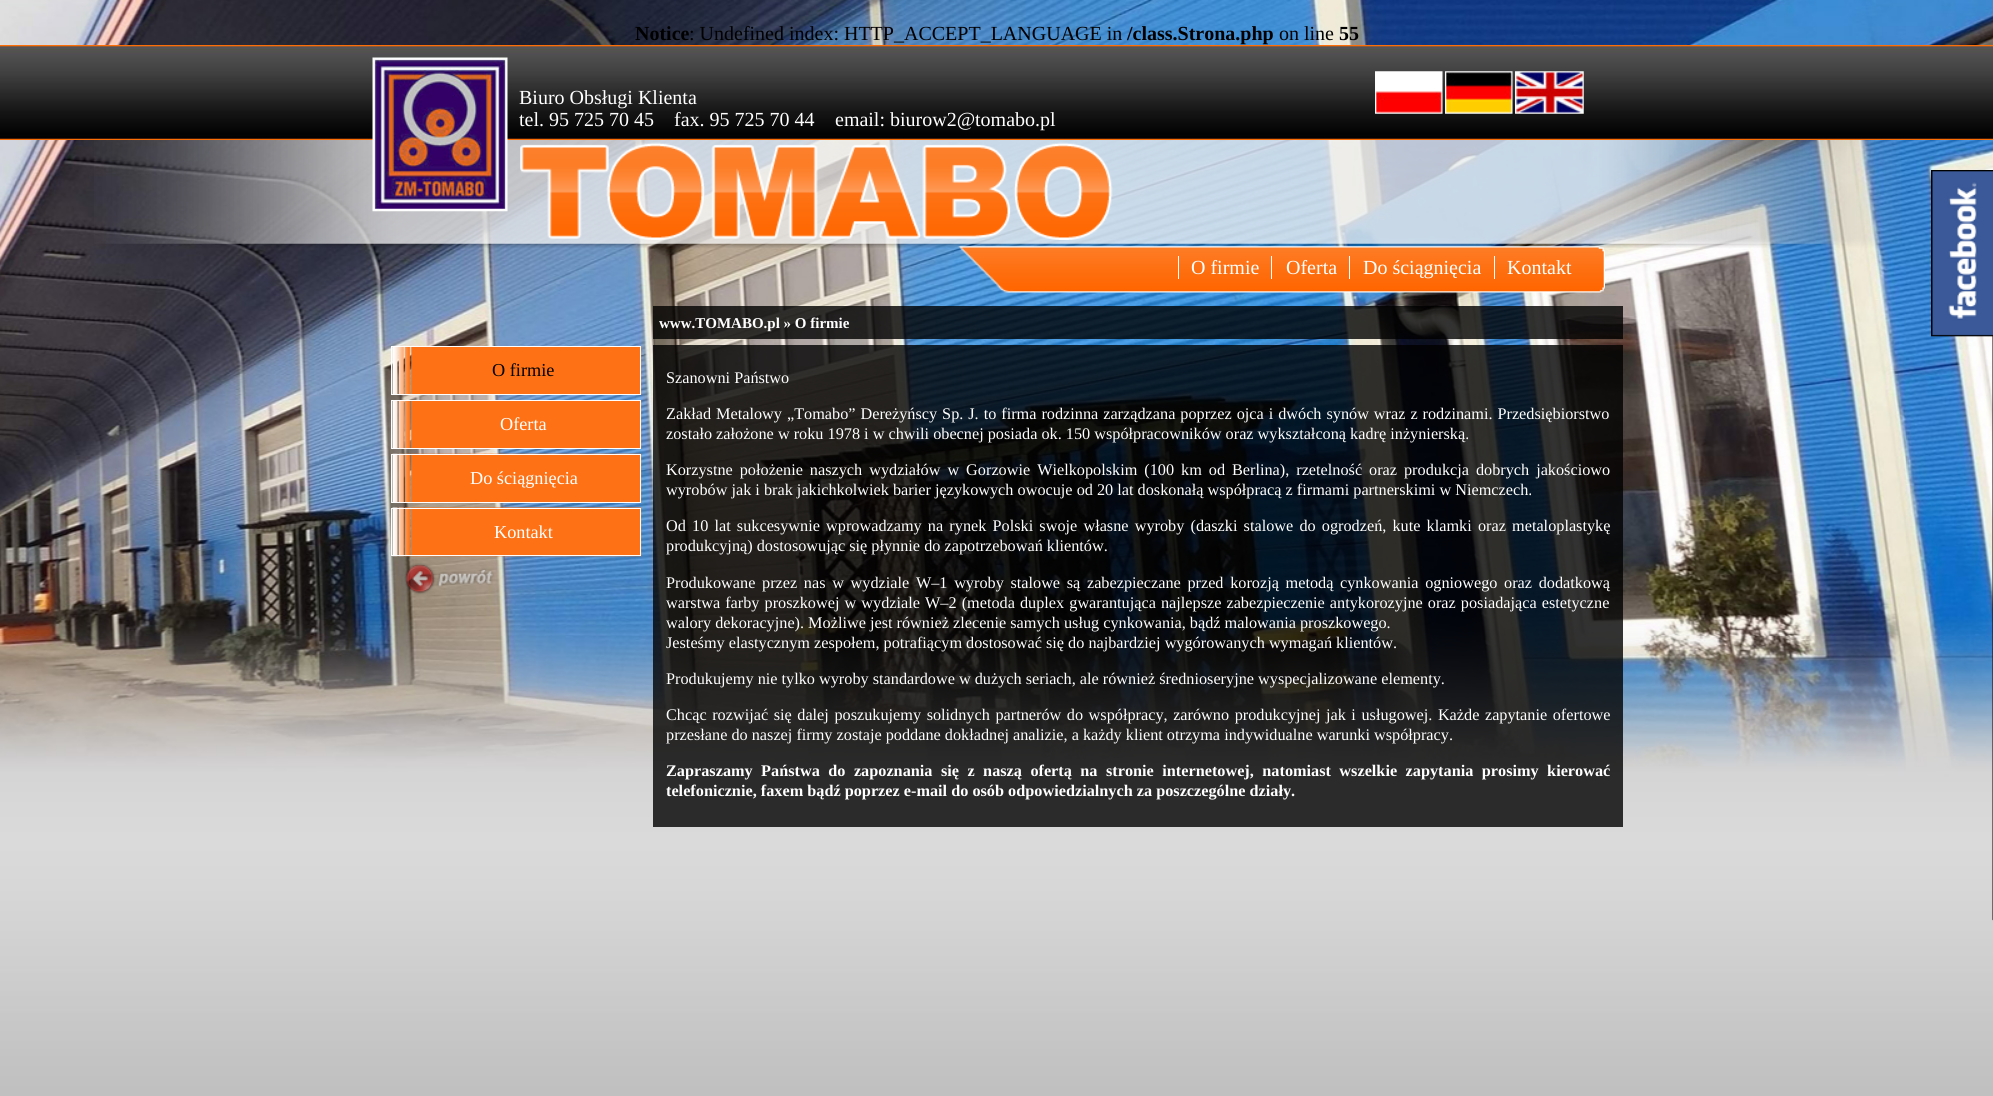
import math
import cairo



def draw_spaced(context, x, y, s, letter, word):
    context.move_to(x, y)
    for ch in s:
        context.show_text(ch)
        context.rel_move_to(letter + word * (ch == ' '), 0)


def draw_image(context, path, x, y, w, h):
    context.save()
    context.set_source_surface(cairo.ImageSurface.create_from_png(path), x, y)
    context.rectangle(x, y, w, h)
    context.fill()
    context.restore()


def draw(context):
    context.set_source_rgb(1, 1, 1)
    context.paint()
    draw_image(context, "images/1.png", 0, 0, 1993, 1096)
    draw_image(context, "images/2.png", 94, 140, 1807, 108)
    draw_image(context, "images/3.png", 0, 45, 1993, 95)
    draw_image(context, "images/4.png", 372, 57, 136, 155)
    draw_image(context, "images/5.png", 1375, 71, 68, 43)
    draw_image(context, "images/6.png", 1445, 71, 68, 43)
    draw_image(context, "images/7.png", 1515, 71, 69, 43)
    draw_image(context, "images/8.png", 520, 142, 593, 98)
    draw_image(context, "images/9.png", 957, 246, 648, 47)
    context.set_source_rgb(1, 1, 1)
    context.rectangle(1178, 256, 1, 23)
    context.fill()
    context.rectangle(1271, 256, 1, 23)
    context.fill()
    context.rectangle(1349, 256, 1, 23)
    context.fill()
    context.rectangle(1494, 256, 1, 23)
    context.fill()
    draw_image(context, "images/10.png", 392, 346, 250, 49)
    context.rectangle(391.5, 346.5, 249, 48)
    context.set_line_width(1)
    context.stroke()
    draw_image(context, "images/11.png", 392, 400, 250, 49)
    context.rectangle(391.5, 400.5, 249, 48)
    context.stroke()
    draw_image(context, "images/12.png", 392, 453, 250, 50)
    context.rectangle(391.5, 454.5, 249, 48)
    context.stroke()
    draw_image(context, "images/13.png", 392, 507, 250, 50)
    context.rectangle(391.5, 508.5, 249, 47)
    context.stroke()
    draw_image(context, "images/14.png", 404, 563, 90, 32)
    context.set_source_rgba(0, 0, 0, 0.8)
    context.rectangle(653, 306, 970, 33)
    context.fill()
    context.rectangle(653, 345, 970, 482)
    context.fill()
    draw_image(context, "images/15.png", 1931, 170, 62, 751)
    context.select_font_face("Liberation Serif", cairo.FontSlant.NORMAL, cairo.FontWeight.BOLD)
    context.set_font_size(20)
    context.set_source_rgb(0, 0, 0)
    context.move_to(635, 40)
    context.show_text("Notice")
    context.select_font_face("Liberation Serif")
    context.move_to(689, 40)
    context.show_text(": Undefined index: HTTP_ACCEPT_LANGUAGE in")
    context.select_font_face("Liberation Serif", cairo.FontSlant.NORMAL, cairo.FontWeight.BOLD)
    context.move_to(1127, 40)
    context.show_text("/class.Strona.php")
    context.select_font_face("Liberation Serif")
    context.move_to(1279, 40)
    context.show_text("on line")
    context.select_font_face("Liberation Serif", cairo.FontSlant.NORMAL, cairo.FontWeight.BOLD)
    context.move_to(1339, 40)
    context.show_text("55")
    context.select_font_face("Liberation Serif")
    context.set_source_rgb(1, 1, 1)
    context.move_to(519, 104)
    context.show_text("Biuro Obsługi Klienta")
    context.move_to(519, 126)
    context.show_text("tel. 95 725 70 45")
    context.move_to(674, 126)
    context.show_text("fax. 95 725 70 44")
    context.move_to(835, 126)
    context.show_text("email: biurow2@tomabo.pl")
    context.move_to(1191, 274)
    context.show_text("O firmie")
    context.move_to(1286, 274)
    context.show_text("Oferta")
    context.move_to(1363, 274)
    context.show_text("Do ściągnięcia")
    context.move_to(1507, 274)
    context.show_text("Kontakt")
    context.set_font_size(18.25)
    context.set_source_rgb(0, 0, 0)
    context.move_to(492, 376)
    context.show_text("O firmie")
    context.set_source_rgb(1, 1, 1)
    context.move_to(500, 430)
    context.show_text("Oferta")
    context.move_to(470, 484)
    context.show_text("Do ściągnięcia")
    context.move_to(494, 538)
    context.show_text("Kontakt")
    context.select_font_face("Liberation Serif", cairo.FontSlant.NORMAL, cairo.FontWeight.BOLD)
    context.set_font_size(15)
    context.move_to(659, 328)
    context.show_text("www.TOMABO.pl » O firmie")
    context.select_font_face("Liberation Serif")
    context.set_font_size(16.25)
    context.move_to(666, 383)
    context.show_text("Szanowni Państwo")
    draw_spaced(context, 666, 419, "Zakład Metalowy „Tomabo” Dereżyńscy Sp. J. to firma rodzinna zarządzana poprzez ojca i dwóch synów wraz z rodzinami. Przedsiębiorstwo", 0, 0.9)
    context.move_to(666, 439)
    context.show_text("zostało założone w roku 1978 i w chwili obecnej posiada ok. 150 współpracowników oraz wykształconą kadrę inżynierską.")
    draw_spaced(context, 666, 475, "Korzystne położenie naszych wydziałów w Gorzowie Wielkopolskim (100 km od Berlina), rzetelność oraz produkcja dobrych jakościowo", 0, 2.9)
    context.move_to(666, 495)
    context.show_text("wyrobów jak i brak jakichkolwiek barier językowych owocuje od 20 lat doskonałą współpracą z firmami partnerskimi w Niemczech.")
    draw_spaced(context, 666, 531, "Od 10 lat sukcesywnie wprowadzamy na rynek Polski swoje własne wyroby (daszki stalowe do ogrodzeń, kute klamki oraz metaloplastykę", 0, 2.1)
    context.move_to(666, 551)
    context.show_text("produkcyjną) dostosowując się płynnie do zapotrzebowań klientów.")
    draw_spaced(context, 666, 588, "Produkowane przez nas w wydziale W–1 wyroby stalowe są zabezpieczane przed korozją metodą cynkowania ogniowego oraz dodatkową", 0, 2.6)
    draw_spaced(context, 666, 608, "warstwa farby proszkowej w wydziale W–2 (metoda duplex gwarantująca najlepsze zabezpieczenie antykorozyjne oraz posiadająca estetyczne", 0, 1)
    context.move_to(666, 628)
    context.show_text("walory dekoracyjne). Możliwe jest również zlecenie samych usług cynkowania, bądź malowania proszkowego.")
    context.move_to(666, 648)
    context.show_text("Jesteśmy elastycznym zespołem, potrafiącym dostosować się do najbardziej wygórowanych wymagań klientów.")
    context.move_to(666, 684)
    context.show_text("Produkujemy nie tylko wyroby standardowe w dużych seriach, ale również średnioseryjne wyspecjalizowane elementy.")
    draw_spaced(context, 666, 720, "Chcąc rozwijać się dalej poszukujemy solidnych partnerów do współpracy, zarówno produkcyjnej jak i usługowej. Każde zapytanie ofertowe", 0, 1.5)
    context.move_to(666, 740)
    context.show_text("przesłane do naszej firmy zostaje poddane dokładnej analizie, a każdy klient otrzyma indywidualne warunki współpracy.")
    context.select_font_face("Liberation Serif", cairo.FontSlant.NORMAL, cairo.FontWeight.BOLD)
    draw_spaced(context, 666, 776, "Zapraszamy Państwa do zapoznania się z naszą ofertą na stronie internetowej, natomiast wszelkie zapytania prosimy kierować", 0, 4.4)
    context.move_to(666, 796)
    context.show_text("telefonicznie, faxem bądź poprzez e-mail do osób odpowiedzialnych za poszczególne działy.")


surface = cairo.ImageSurface(cairo.Format.RGB24, 1993, 1096)
context = cairo.Context(surface)
options = cairo.FontOptions()
options.set_hint_metrics(cairo.HintMetrics.OFF)
options.set_hint_style(cairo.HintStyle.NONE)
context.set_font_options(options)
context.set_miter_limit(4)
draw(context)
surface.write_to_png("out.png")
